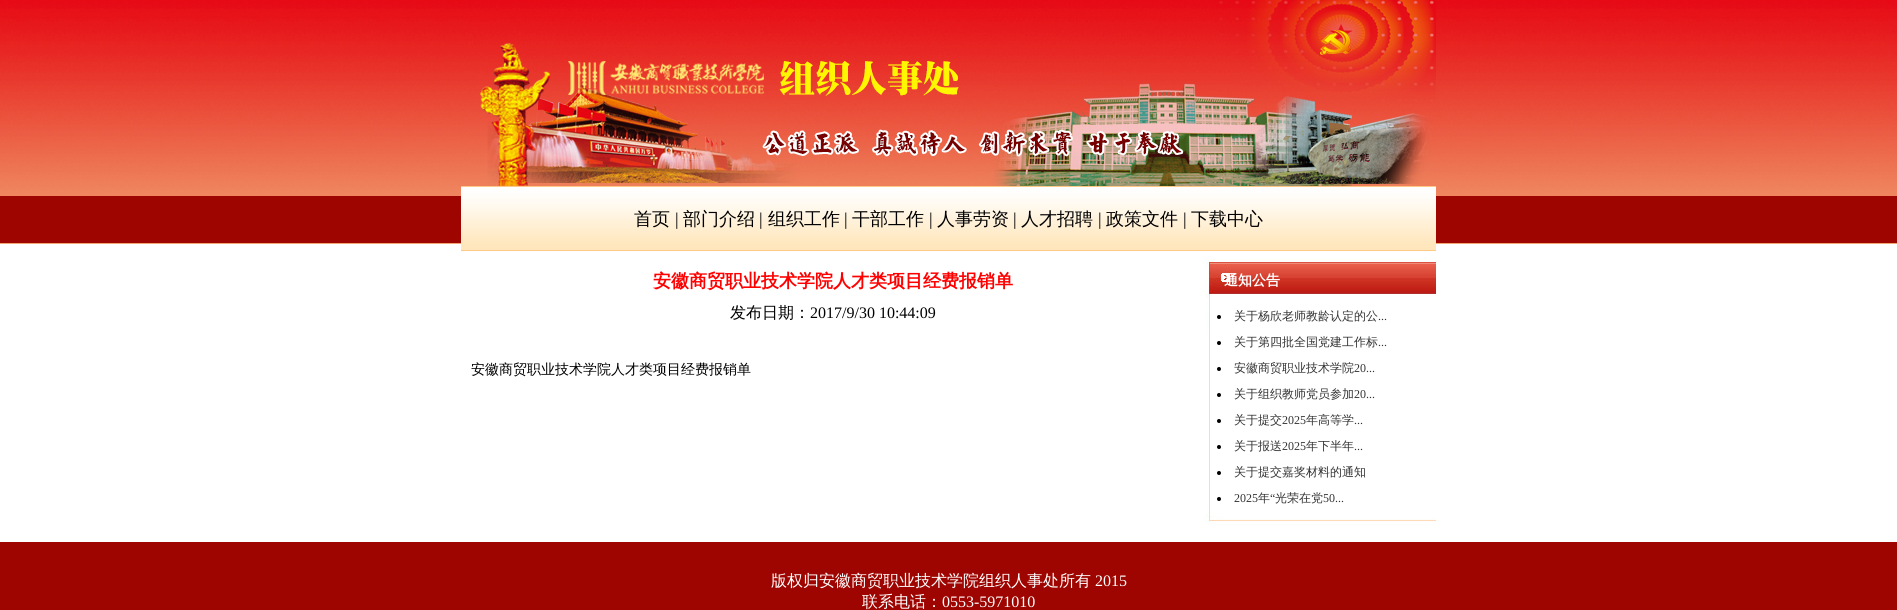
import math
import cairo



def draw_image(context, path, x, y, w, h):
    context.save()
    context.set_source_surface(cairo.ImageSurface.create_from_png(path), x, y)
    context.rectangle(x, y, w, h)
    context.fill()
    context.restore()


def draw(context):
    context.set_source_rgb(1, 1, 1)
    context.paint()
    draw_image(context, "images/1.png", 0, 0, 1897, 244)
    draw_image(context, "images/2.png", 461, 0, 975, 251)
    draw_image(context, "images/3.png", 1204, 259, 232, 263)
    context.set_source_rgb(0, 0, 0)
    context.arc(1219, 317, 2, 0, 2 * math.pi)
    context.fill()
    context.arc(1219, 343, 2, 0, 2 * math.pi)
    context.fill()
    context.arc(1219, 369, 2, 0, 2 * math.pi)
    context.fill()
    context.arc(1219, 395, 2, 0, 2 * math.pi)
    context.fill()
    context.arc(1219, 421, 2, 0, 2 * math.pi)
    context.fill()
    context.arc(1219, 447, 2, 0, 2 * math.pi)
    context.fill()
    context.arc(1219, 473, 2, 0, 2 * math.pi)
    context.fill()
    context.arc(1219, 499, 2, 0, 2 * math.pi)
    context.fill()
    context.set_source_rgb(158 / 255, 5 / 255, 0)
    context.rectangle(0, 542, 1897, 68)
    context.fill()
    context.select_font_face("WenQuanYi Zen Hei Medium")
    context.set_font_size(18)
    context.set_source_rgb(0, 0, 0)
    context.move_to(634, 225)
    context.show_text("首页")
    context.select_font_face("Liberation Serif")
    context.move_to(675, 225)
    context.show_text("|")
    context.select_font_face("WenQuanYi Zen Hei Medium")
    context.move_to(683, 225)
    context.show_text("部门介绍")
    context.select_font_face("Liberation Serif")
    context.move_to(759, 225)
    context.show_text("|")
    context.select_font_face("WenQuanYi Zen Hei Medium")
    context.move_to(768, 225)
    context.show_text("组织工作")
    context.select_font_face("Liberation Serif")
    context.move_to(844, 225)
    context.show_text("|")
    context.select_font_face("WenQuanYi Zen Hei Medium")
    context.move_to(852, 225)
    context.show_text("干部工作")
    context.select_font_face("Liberation Serif")
    context.move_to(929, 225)
    context.show_text("|")
    context.select_font_face("WenQuanYi Zen Hei Medium")
    context.move_to(937, 225)
    context.show_text("人事劳资")
    context.select_font_face("Liberation Serif")
    context.move_to(1013, 225)
    context.show_text("|")
    context.select_font_face("WenQuanYi Zen Hei Medium")
    context.move_to(1021, 225)
    context.show_text("人才招聘")
    context.select_font_face("Liberation Serif")
    context.move_to(1098, 225)
    context.show_text("|")
    context.select_font_face("WenQuanYi Zen Hei Medium")
    context.move_to(1106, 225)
    context.show_text("政策文件")
    context.select_font_face("Liberation Serif")
    context.move_to(1183, 225)
    context.show_text("|")
    context.select_font_face("WenQuanYi Zen Hei Medium")
    context.move_to(1191, 225)
    context.show_text("下载中心")
    context.select_font_face("WenQuanYi Zen Hei", cairo.FontSlant.NORMAL, cairo.FontWeight.BOLD)
    context.set_source_rgb(1, 0, 0)
    context.move_to(653, 287)
    context.show_text("安徽商贸职业技术学院人才类项目经费报销单")
    context.select_font_face("WenQuanYi Zen Hei Medium")
    context.set_font_size(16)
    context.set_source_rgb(0, 0, 0)
    context.move_to(730, 318)
    context.show_text("发布日期：")
    context.select_font_face("Liberation Serif")
    context.move_to(810, 318)
    context.show_text("2017/9/30 10:44:09")
    context.select_font_face("WenQuanYi Zen Hei Medium")
    context.set_font_size(14)
    context.move_to(471, 374)
    context.show_text("安徽商贸职业技术学院人才类项目经费报销单")
    context.select_font_face("WenQuanYi Zen Hei", cairo.FontSlant.NORMAL, cairo.FontWeight.BOLD)
    context.set_source_rgb(1, 1, 1)
    context.move_to(1224, 285)
    context.show_text("通知公告")
    context.select_font_face("WenQuanYi Zen Hei Medium")
    context.set_font_size(12)
    context.set_source_rgb(51 / 255, 51 / 255, 51 / 255)
    context.move_to(1234, 320)
    context.show_text("关于杨欣老师教龄认定的公")
    context.select_font_face("Liberation Serif")
    context.move_to(1378, 320)
    context.show_text("...")
    context.select_font_face("WenQuanYi Zen Hei Medium")
    context.move_to(1234, 346)
    context.show_text("关于第四批全国党建工作标")
    context.select_font_face("Liberation Serif")
    context.move_to(1378, 346)
    context.show_text("...")
    context.select_font_face("WenQuanYi Zen Hei Medium")
    context.move_to(1234, 372)
    context.show_text("安徽商贸职业技术学院")
    context.select_font_face("Liberation Serif")
    context.move_to(1354, 372)
    context.show_text("20...")
    context.select_font_face("WenQuanYi Zen Hei Medium")
    context.move_to(1234, 398)
    context.show_text("关于组织教师党员参加")
    context.select_font_face("Liberation Serif")
    context.move_to(1354, 398)
    context.show_text("20...")
    context.select_font_face("WenQuanYi Zen Hei Medium")
    context.move_to(1234, 424)
    context.show_text("关于提交")
    context.select_font_face("Liberation Serif")
    context.move_to(1282, 424)
    context.show_text("2025")
    context.select_font_face("WenQuanYi Zen Hei Medium")
    context.move_to(1306, 424)
    context.show_text("年高等学")
    context.select_font_face("Liberation Serif")
    context.move_to(1354, 424)
    context.show_text("...")
    context.select_font_face("WenQuanYi Zen Hei Medium")
    context.move_to(1234, 450)
    context.show_text("关于报送")
    context.select_font_face("Liberation Serif")
    context.move_to(1282, 450)
    context.show_text("2025")
    context.select_font_face("WenQuanYi Zen Hei Medium")
    context.move_to(1306, 450)
    context.show_text("年下半年")
    context.select_font_face("Liberation Serif")
    context.move_to(1354, 450)
    context.show_text("...")
    context.select_font_face("WenQuanYi Zen Hei Medium")
    context.move_to(1234, 476)
    context.show_text("关于提交嘉奖材料的通知")
    context.select_font_face("Liberation Serif")
    context.move_to(1234, 502)
    context.show_text("2025")
    context.select_font_face("WenQuanYi Zen Hei Medium")
    context.move_to(1258, 502)
    context.show_text("年")
    context.select_font_face("Liberation Serif")
    context.move_to(1270, 502)
    context.show_text("“")
    context.select_font_face("WenQuanYi Zen Hei Medium")
    context.move_to(1275, 502)
    context.show_text("光荣在党")
    context.select_font_face("Liberation Serif")
    context.move_to(1323, 502)
    context.show_text("50...")
    context.select_font_face("WenQuanYi Zen Hei Medium")
    context.set_font_size(16)
    context.set_source_rgb(1, 1, 1)
    context.move_to(771, 586)
    context.show_text("版权归安徽商贸职业技术学院组织人事处所有")
    context.select_font_face("Liberation Serif")
    context.move_to(1095, 586)
    context.show_text("2015")
    context.select_font_face("WenQuanYi Zen Hei Medium")
    context.move_to(862, 607)
    context.show_text("联系电话：")
    context.select_font_face("Liberation Serif")
    context.move_to(942, 607)
    context.show_text("0553-5971010")


surface = cairo.ImageSurface(cairo.Format.RGB24, 1897, 610)
context = cairo.Context(surface)
options = cairo.FontOptions()
options.set_hint_metrics(cairo.HintMetrics.OFF)
options.set_hint_style(cairo.HintStyle.NONE)
context.set_font_options(options)
context.set_miter_limit(4)
draw(context)
surface.write_to_png("out.png")
